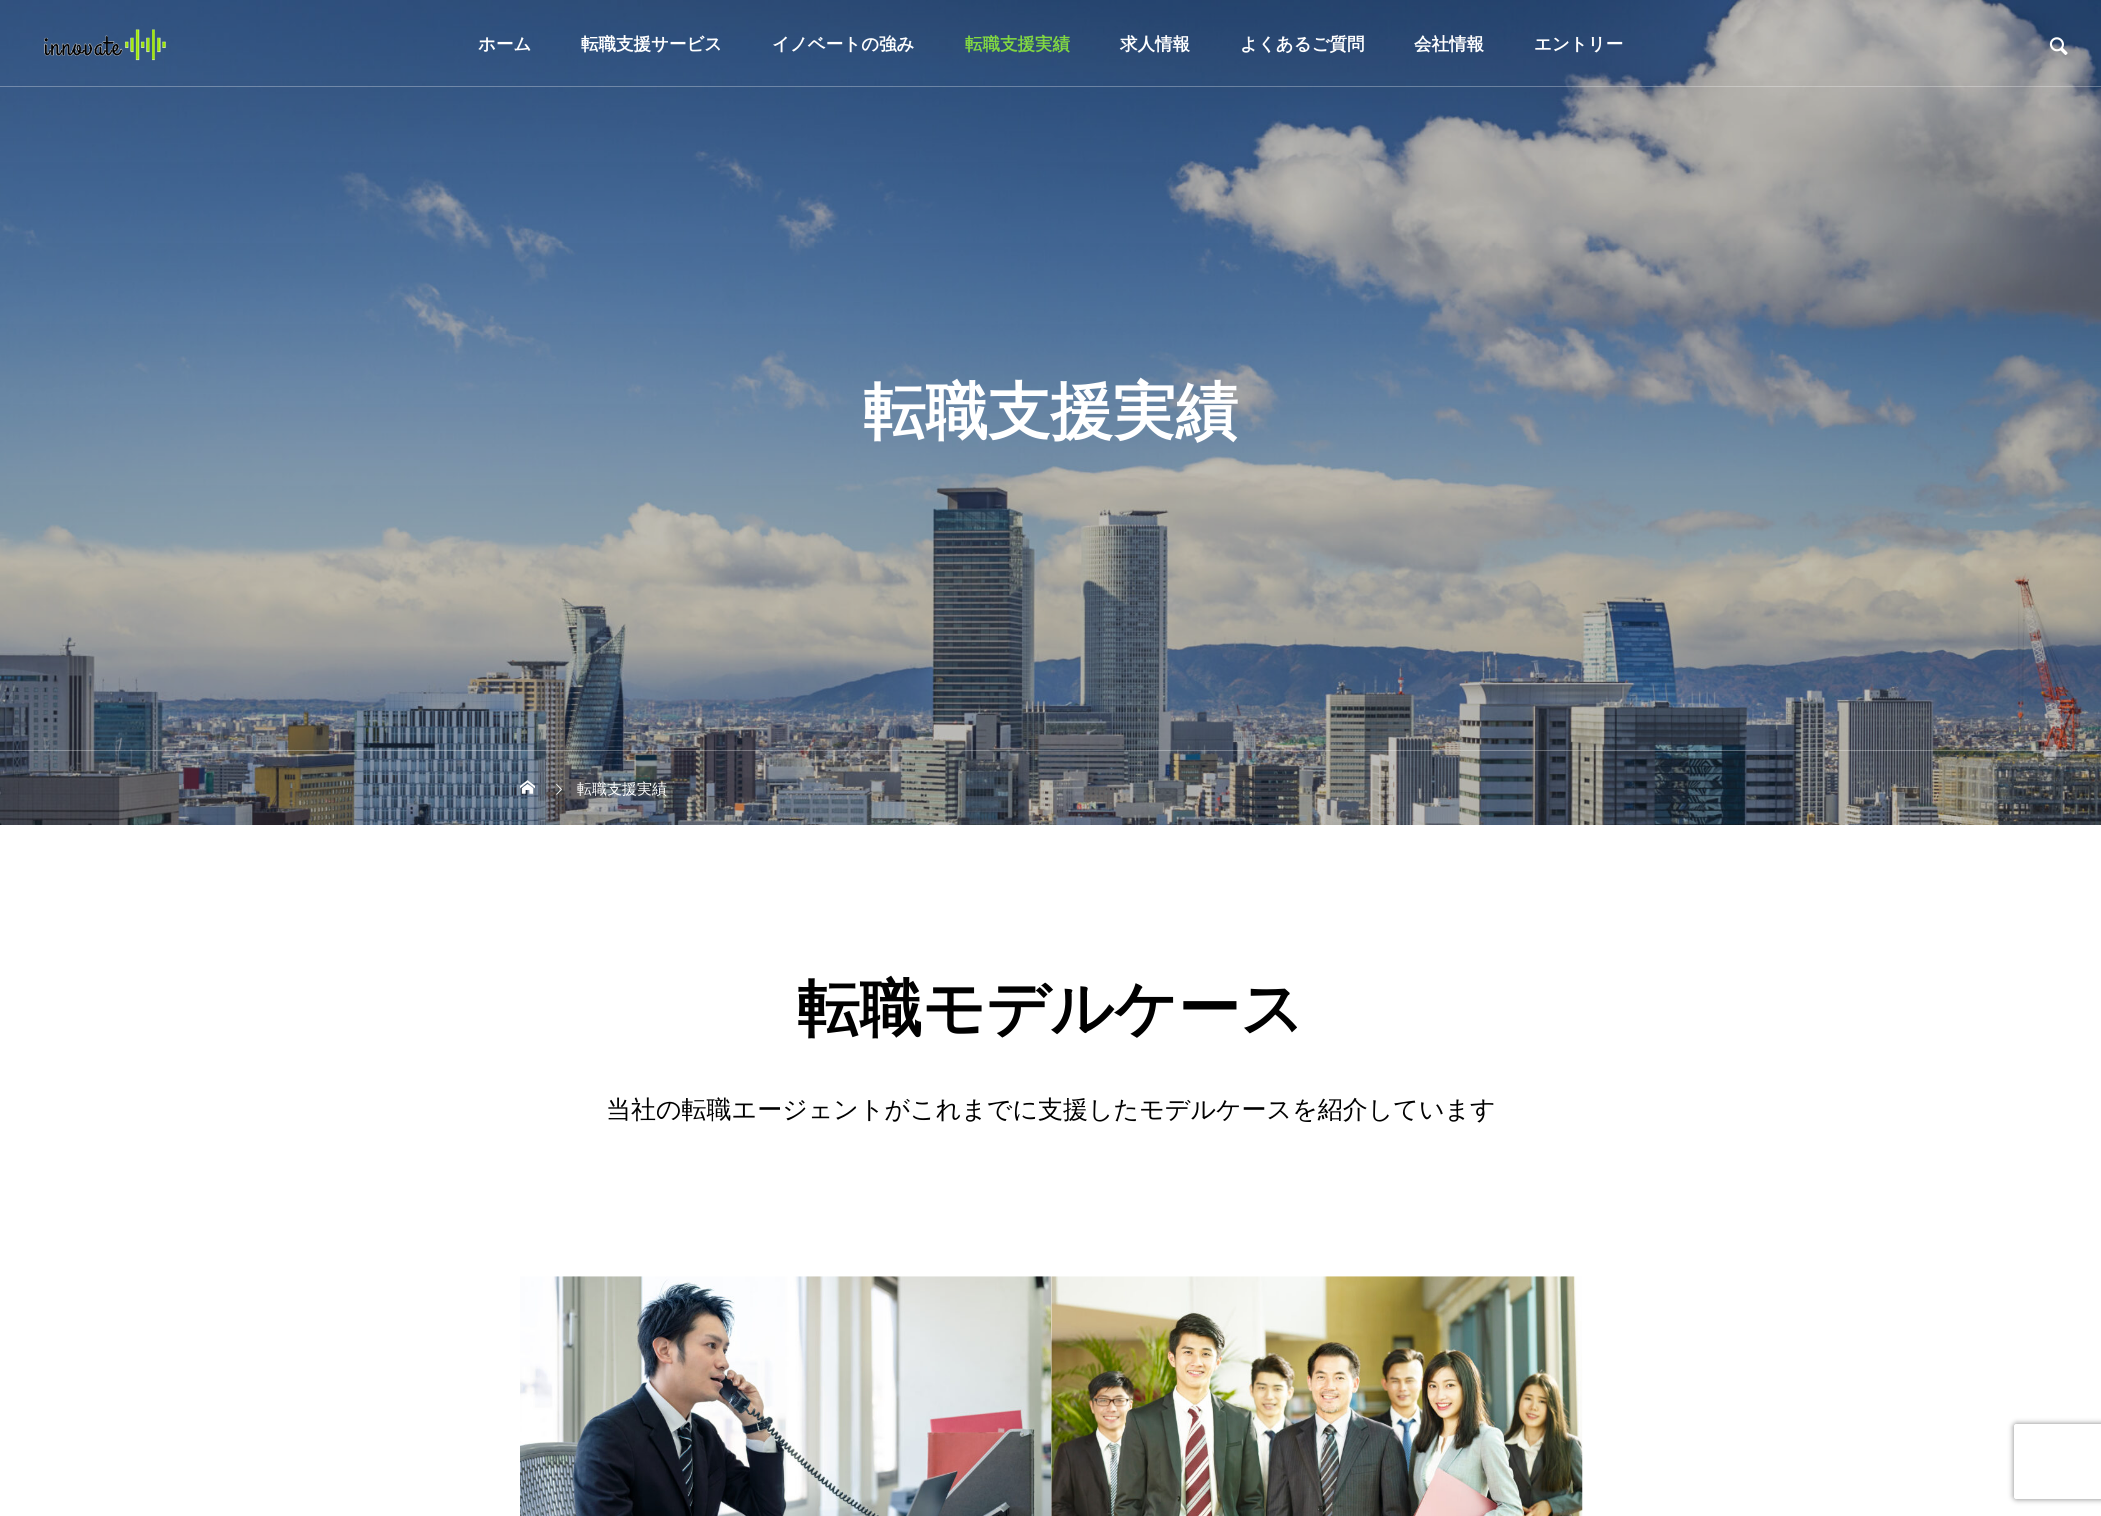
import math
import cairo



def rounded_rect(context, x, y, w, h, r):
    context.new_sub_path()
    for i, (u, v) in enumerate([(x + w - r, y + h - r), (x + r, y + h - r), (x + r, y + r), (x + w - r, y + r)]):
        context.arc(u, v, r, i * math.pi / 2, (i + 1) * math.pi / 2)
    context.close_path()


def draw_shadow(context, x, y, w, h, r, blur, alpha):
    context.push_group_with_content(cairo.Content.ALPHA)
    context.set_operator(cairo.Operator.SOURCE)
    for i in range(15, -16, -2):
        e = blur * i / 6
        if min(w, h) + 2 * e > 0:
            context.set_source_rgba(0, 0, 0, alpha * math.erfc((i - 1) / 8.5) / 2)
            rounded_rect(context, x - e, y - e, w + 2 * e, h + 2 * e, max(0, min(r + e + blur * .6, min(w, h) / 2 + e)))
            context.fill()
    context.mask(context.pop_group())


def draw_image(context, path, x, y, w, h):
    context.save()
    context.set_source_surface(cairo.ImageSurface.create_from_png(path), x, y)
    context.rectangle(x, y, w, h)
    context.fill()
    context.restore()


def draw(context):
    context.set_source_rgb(1, 1, 1)
    context.paint()
    draw_image(context, "images/3.png", 0, 0, 2101, 825)
    context.set_source_rgba(1, 1, 1, 0.3)
    context.rectangle(0, 86, 2101, 1)
    context.fill()
    draw_image(context, "images/1.png", 44, 29, 122, 32)
    draw_image(context, "images/2.png", 2049, 37, 19, 18)
    context.rectangle(0, 750, 2101, 1)
    context.fill()
    draw_image(context, "images/4.png", 520, 780, 15, 14)
    draw_image(context, "images/5.png", 556, 784, 6, 11)
    draw_image(context, "images/6.png", 520, 1276, 532, 240)
    draw_image(context, "images/7.png", 1051, 1276, 532, 240)
    context.save()
    context.set_fill_rule(cairo.FillRule.EVEN_ODD)
    context.new_path()
    context.move_to(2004, 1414)
    context.line_to(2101, 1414)
    context.line_to(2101, 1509)
    context.line_to(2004, 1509)
    context.close_path()
    context.move_to(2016.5, 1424)
    context.line_to(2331.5, 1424)
    context.curve_to(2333, 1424, 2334, 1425, 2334, 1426.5)
    context.line_to(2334, 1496.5)
    context.curve_to(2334, 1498, 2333, 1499, 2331.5, 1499)
    context.line_to(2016.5, 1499)
    context.curve_to(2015, 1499, 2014, 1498, 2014, 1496.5)
    context.line_to(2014, 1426.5)
    context.curve_to(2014, 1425, 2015, 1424, 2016.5, 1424)
    context.close_path()
    context.clip()
    context.set_source_rgb(128 / 255, 128 / 255, 128 / 255)
    draw_shadow(context, 2014, 1424, 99, 75, 2.5, 3, 1)
    context.restore()
    context.select_font_face("WenQuanYi Zen Hei", cairo.FontSlant.NORMAL, cairo.FontWeight.BOLD)
    context.set_font_size(17.5)
    context.set_source_rgb(1, 1, 1)
    context.move_to(478, 50)
    context.show_text("ホーム")
    context.move_to(581, 50)
    context.show_text("転職支援サービス")
    context.move_to(772, 50)
    context.show_text("イノベートの強み")
    context.set_source_rgb(129 / 255, 215 / 255, 66 / 255)
    context.move_to(965, 50)
    context.show_text("転職支援実績")
    context.set_source_rgb(1, 1, 1)
    context.move_to(1120, 50)
    context.show_text("求人情報")
    context.move_to(1240, 50)
    context.show_text("よくあるご質問")
    context.move_to(1414, 50)
    context.show_text("会社情報")
    context.move_to(1534, 50)
    context.show_text("エントリー")
    context.set_font_size(62.5)
    context.move_to(863, 433)
    context.show_text("転職支援実績")
    context.select_font_face("WenQuanYi Zen Hei Medium")
    context.set_font_size(15)
    context.move_to(577, 794)
    context.show_text("転職支援実績")
    context.select_font_face("WenQuanYi Zen Hei", cairo.FontSlant.NORMAL, cairo.FontWeight.BOLD)
    context.set_font_size(62.5)
    context.set_source_rgb(0, 0, 0)
    context.move_to(797, 1030)
    context.show_text("転職モデルケース")
    context.select_font_face("WenQuanYi Zen Hei Medium")
    context.set_font_size(25)
    context.move_to(606, 1118)
    context.show_text("当社の転職エージェントがこれまでに支援したモデルケースを紹介しています")


surface = cairo.ImageSurface(cairo.Format.RGB24, 2101, 1516)
context = cairo.Context(surface)
options = cairo.FontOptions()
options.set_hint_metrics(cairo.HintMetrics.OFF)
options.set_hint_style(cairo.HintStyle.NONE)
context.set_font_options(options)
context.set_miter_limit(4)
draw(context)
surface.write_to_png("out.png")
